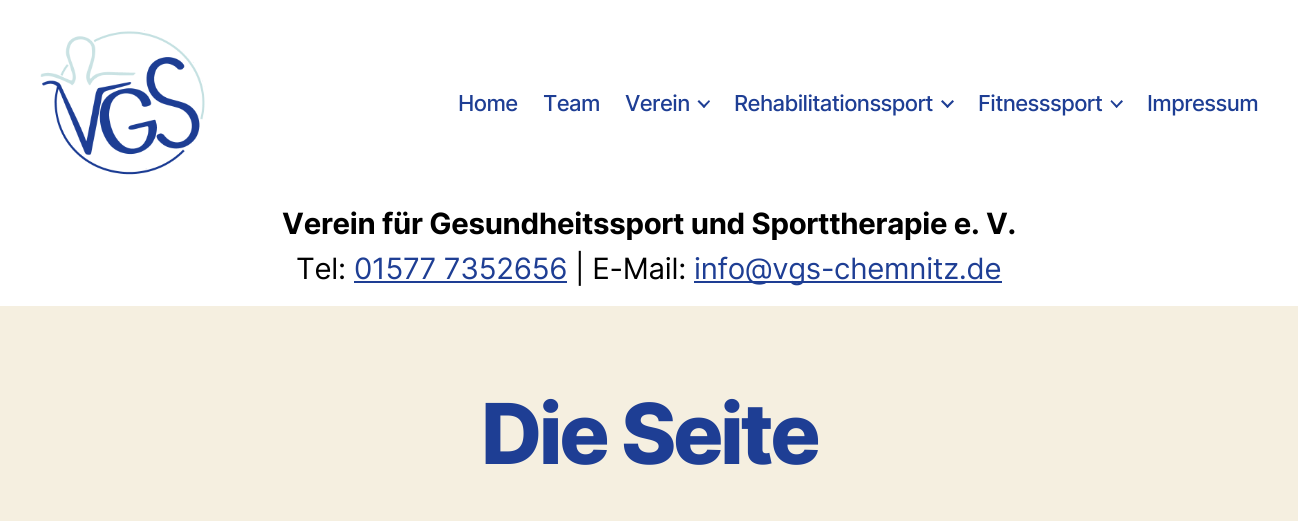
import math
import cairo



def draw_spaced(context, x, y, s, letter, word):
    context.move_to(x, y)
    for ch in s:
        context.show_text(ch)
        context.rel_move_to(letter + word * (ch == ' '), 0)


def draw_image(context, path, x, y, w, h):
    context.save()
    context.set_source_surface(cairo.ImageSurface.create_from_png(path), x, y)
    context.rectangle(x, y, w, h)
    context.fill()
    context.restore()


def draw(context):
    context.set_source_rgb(245 / 255, 239 / 255, 224 / 255)
    context.paint()
    context.set_source_rgb(1, 1, 1)
    context.rectangle(0, 0, 1298, 306)
    context.fill()
    draw_image(context, "images/1.png", 40, 30, 165, 145)
    context.set_source_rgb(30 / 255, 62 / 255, 148 / 255)
    context.new_path()
    context.move_to(697.5, 101.5)
    context.line_to(699, 100)
    context.line_to(705.5, 106.5)
    context.line_to(704, 108)
    context.close_path()
    context.fill()
    context.new_path()
    context.move_to(702.5, 106.5)
    context.line_to(709, 100)
    context.line_to(710, 101.5)
    context.line_to(704, 108)
    context.close_path()
    context.fill()
    context.new_path()
    context.move_to(941, 101.5)
    context.line_to(942.5, 100)
    context.line_to(949, 106.5)
    context.line_to(947.5, 108)
    context.close_path()
    context.fill()
    context.new_path()
    context.move_to(946, 106.5)
    context.line_to(952.5, 100)
    context.line_to(954, 101.5)
    context.line_to(947.5, 108)
    context.close_path()
    context.fill()
    context.new_path()
    context.move_to(1110.5, 101.5)
    context.line_to(1111.5, 100)
    context.line_to(1118, 106.5)
    context.line_to(1116.5, 108)
    context.close_path()
    context.fill()
    context.new_path()
    context.move_to(1115.5, 106.5)
    context.line_to(1121.5, 100)
    context.line_to(1123, 101.5)
    context.line_to(1116.5, 108)
    context.close_path()
    context.fill()
    context.rectangle(354, 281, 213, 2)
    context.fill()
    context.rectangle(694, 281, 308, 2)
    context.fill()
    context.select_font_face("Inter Medium")
    context.set_font_size(22)
    draw_spaced(context, 458, 111, "Home", -0.6, 0)
    draw_spaced(context, 543, 111, "Team", -0.6, 0)
    draw_spaced(context, 625, 111, "Verein", -0.6, 0)
    draw_spaced(context, 734, 111, "Rehabilitationssport", -0.6, 0)
    draw_spaced(context, 978, 111, "Fitnesssport", -0.6, 0)
    draw_spaced(context, 1147, 111, "Impressum", -0.6, 0)
    context.select_font_face("Inter", cairo.FontSlant.NORMAL, cairo.FontWeight.BOLD)
    context.set_font_size(29.3)
    context.set_source_rgb(0, 0, 0)
    draw_spaced(context, 282, 234, "Verein für Gesundheitssport und Sporttherapie e. V.", -0.27, 0)
    context.select_font_face("Inter")
    draw_spaced(context, 296, 279, "Tel:", -0.27, 0)
    context.set_source_rgb(30 / 255, 62 / 255, 148 / 255)
    draw_spaced(context, 354, 279, "01577 7352656", -0.27, 0)
    context.set_source_rgb(0, 0, 0)
    draw_spaced(context, 575, 279, "| E-Mail:", -0.27, 0)
    context.set_source_rgb(30 / 255, 62 / 255, 148 / 255)
    draw_spaced(context, 694, 279, "info@vgs-chemnitz.de", -0.27, 0)
    context.select_font_face("Inter ExtraBold")
    context.set_font_size(84)
    draw_spaced(context, 481, 464, "Die Seite", -3.5, 0)


surface = cairo.ImageSurface(cairo.Format.RGB24, 1298, 521)
context = cairo.Context(surface)
options = cairo.FontOptions()
options.set_hint_metrics(cairo.HintMetrics.OFF)
options.set_hint_style(cairo.HintStyle.NONE)
context.set_font_options(options)
context.set_miter_limit(4)
draw(context)
surface.write_to_png("out.png")
